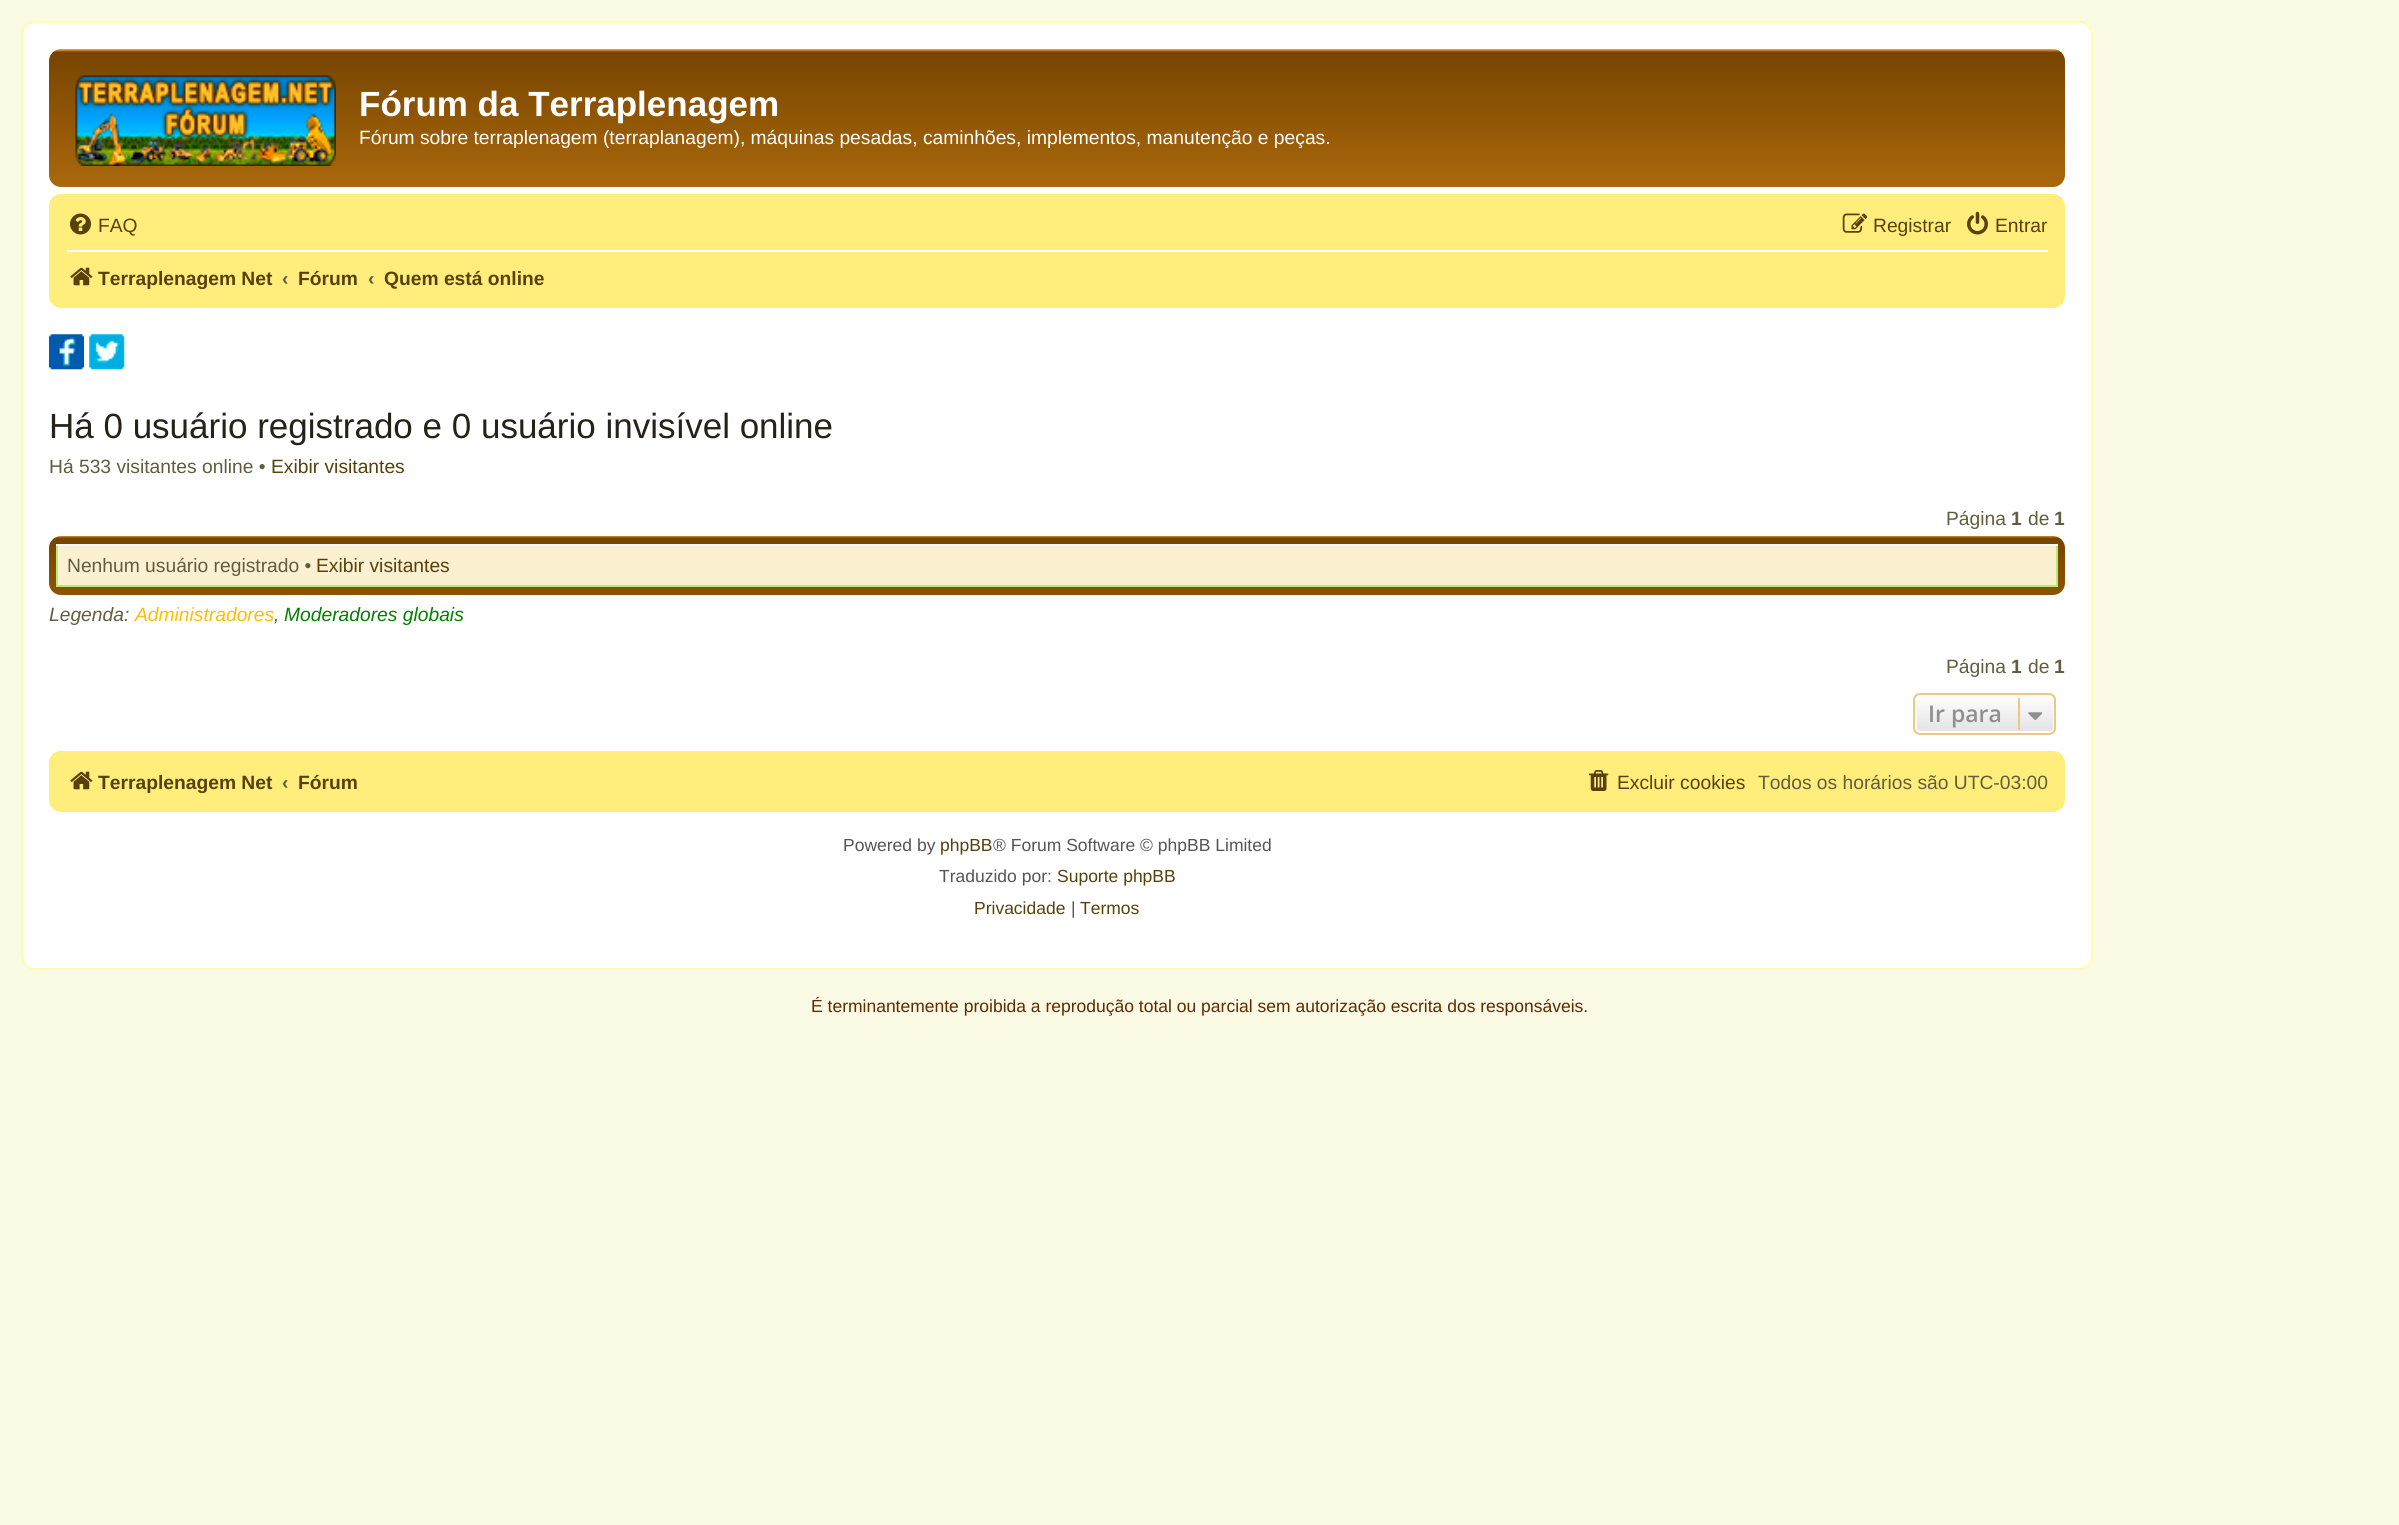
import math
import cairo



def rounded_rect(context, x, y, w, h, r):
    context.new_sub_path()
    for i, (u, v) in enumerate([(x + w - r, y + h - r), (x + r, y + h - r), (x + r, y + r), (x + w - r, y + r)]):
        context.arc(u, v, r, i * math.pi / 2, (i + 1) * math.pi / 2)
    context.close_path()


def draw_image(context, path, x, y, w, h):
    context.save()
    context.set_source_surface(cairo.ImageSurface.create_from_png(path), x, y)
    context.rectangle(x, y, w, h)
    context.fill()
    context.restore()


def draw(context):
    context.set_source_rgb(250 / 255, 250 / 255, 229 / 255)
    context.paint()
    context.set_source_rgb(1, 1, 1)
    rounded_rect(context, 22, 22, 2070, 947, 13)
    context.fill_preserve()
    context.set_source_rgb(1, 254 / 255, 173 / 255)
    context.stroke()
    gradient = cairo.LinearGradient(1057, 49, 1057, 210)
    gradient.add_color_stop_rgba(0, 1, 173 / 255, 60 / 255, 1)
    gradient.add_color_stop_rgba(0.02, 119 / 255, 69 / 255, 0, 1)
    gradient.add_color_stop_rgba(1, 179 / 255, 110 / 255, 14 / 255, 1)
    context.set_source(gradient)
    rounded_rect(context, 49, 49, 2016, 138, 12)
    context.fill()
    draw_image(context, "images/1.png", 75, 75, 261, 91)
    context.set_source_rgb(1, 238 / 255, 123 / 255)
    rounded_rect(context, 49, 194, 2016, 114, 12)
    context.fill()
    draw_image(context, "images/2.png", 70, 213, 21, 22)
    draw_image(context, "images/3.png", 1842, 213, 26, 20)
    draw_image(context, "images/4.png", 1967, 211, 21, 24)
    context.set_source_rgb(1, 1, 1)
    context.rectangle(67, 250, 1981, 2)
    context.fill()
    draw_image(context, "images/5.png", 70, 267, 23, 19)
    draw_image(context, "images/6.png", 49, 334, 35, 36)
    draw_image(context, "images/7.png", 89, 334, 36, 36)
    gradient = cairo.LinearGradient(1057, 535, 1057, 696)
    gradient.add_color_stop_rgba(0, 1, 173 / 255, 60 / 255, 1)
    gradient.add_color_stop_rgba(0.02, 119 / 255, 69 / 255, 0, 1)
    gradient.add_color_stop_rgba(1, 179 / 255, 110 / 255, 14 / 255, 1)
    context.set_source(gradient)
    rounded_rect(context, 49, 536, 2016, 59, 12)
    context.fill()
    context.set_source_rgb(251 / 255, 241 / 255, 208 / 255)
    context.rectangle(58, 546, 1998, 39)
    context.fill()
    context.set_source_rgb(178 / 255, 238 / 255, 115 / 255)
    context.rectangle(2056, 544, 2, 42)
    context.fill()
    context.rectangle(56, 585, 2002, 2)
    context.fill()
    context.rectangle(56, 544, 2, 42)
    context.fill()
    context.set_source_rgb(248 / 255, 248 / 255, 248 / 255)
    context.rectangle(56, 544, 2002, 2)
    context.fill()
    context.save()
    rounded_rect(context, 1913, 693, 143, 42, 7)
    context.clip()
    gradient = cairo.LinearGradient(1985, 695, 1985, 733)
    gradient.add_color_stop_rgba(0, 1, 1, 1, 1)
    gradient.add_color_stop_rgba(1, 226 / 255, 226 / 255, 226 / 255, 1)
    context.set_source(gradient)
    context.rectangle(1913, 695, 143, 38)
    context.fill()
    context.restore()
    rounded_rect(context, 1916, 696, 138, 36, 4)
    context.set_source_rgb(1, 1, 1)
    context.stroke()
    rounded_rect(context, 1914, 694, 141, 40, 6)
    context.set_source_rgb(236 / 255, 200 / 255, 130 / 255)
    context.stroke()
    context.rectangle(2018, 698, 2, 32)
    context.fill()
    draw_image(context, "images/8.png", 2028, 712, 15, 8)
    context.set_source_rgb(1, 238 / 255, 123 / 255)
    rounded_rect(context, 49, 751, 2016, 61, 12)
    context.fill()
    draw_image(context, "images/5.png", 70, 771, 23, 19)
    draw_image(context, "images/9.png", 1589, 770, 20, 21)
    context.select_font_face("Liberation Sans", cairo.FontSlant.NORMAL, cairo.FontWeight.BOLD)
    context.set_font_size(35)
    context.set_source_rgb(1, 1, 1)
    context.move_to(359, 116)
    context.show_text("Fórum da Terraplenagem")
    context.select_font_face("Liberation Sans")
    context.set_font_size(19.25)
    context.move_to(359, 144)
    context.show_text("Fórum sobre terraplenagem (terraplanagem), máquinas pesadas, caminhões, implementos, manutenção e peças.")
    context.set_source_rgb(88 / 255, 65 / 255, 10 / 255)
    context.move_to(98, 232)
    context.show_text("FAQ")
    context.move_to(1873, 232)
    context.show_text("Registrar")
    context.move_to(1995, 232)
    context.show_text("Entrar")
    context.select_font_face("Liberation Sans", cairo.FontSlant.NORMAL, cairo.FontWeight.BOLD)
    context.move_to(98, 285)
    context.show_text("Terraplenagem Net")
    context.set_source_rgb(97 / 255, 93 / 255, 62 / 255)
    context.move_to(282, 285)
    context.show_text("‹")
    context.set_source_rgb(88 / 255, 65 / 255, 10 / 255)
    context.move_to(298, 285)
    context.show_text("Fórum")
    context.set_source_rgb(97 / 255, 93 / 255, 62 / 255)
    context.move_to(368, 285)
    context.show_text("‹")
    context.set_source_rgb(88 / 255, 65 / 255, 10 / 255)
    context.move_to(384, 285)
    context.show_text("Quem está online")
    context.select_font_face("Liberation Sans")
    context.set_font_size(35)
    context.set_source_rgb(37 / 255, 35 / 255, 24 / 255)
    context.move_to(49, 438)
    context.show_text("Há 0 usuário registrado e 0 usuário invisível online")
    context.set_font_size(19.25)
    context.set_source_rgb(97 / 255, 93 / 255, 62 / 255)
    context.move_to(49, 473)
    context.show_text("Há 533 visitantes online •")
    context.set_source_rgb(88 / 255, 65 / 255, 10 / 255)
    context.move_to(271, 473)
    context.show_text("Exibir visitantes")
    context.set_source_rgb(97 / 255, 93 / 255, 62 / 255)
    context.move_to(1946, 525)
    context.show_text("Página")
    context.select_font_face("Liberation Sans", cairo.FontSlant.NORMAL, cairo.FontWeight.BOLD)
    context.move_to(2011, 525)
    context.show_text("1")
    context.select_font_face("Liberation Sans")
    context.move_to(2028, 525)
    context.show_text("de")
    context.select_font_face("Liberation Sans", cairo.FontSlant.NORMAL, cairo.FontWeight.BOLD)
    context.move_to(2054, 525)
    context.show_text("1")
    context.select_font_face("Liberation Sans")
    context.move_to(67, 572)
    context.show_text("Nenhum usuário registrado •")
    context.set_source_rgb(88 / 255, 65 / 255, 10 / 255)
    context.move_to(316, 572)
    context.show_text("Exibir visitantes")
    context.select_font_face("Liberation Sans", cairo.FontSlant.ITALIC)
    context.set_source_rgb(97 / 255, 93 / 255, 62 / 255)
    context.move_to(49, 621)
    context.show_text("Legenda:")
    context.set_source_rgb(1, 191 / 255, 0)
    context.move_to(135, 621)
    context.show_text("Administradores")
    context.set_source_rgb(97 / 255, 93 / 255, 62 / 255)
    context.move_to(274, 621)
    context.show_text(",")
    context.set_source_rgb(0, 128 / 255, 0)
    context.move_to(284, 621)
    context.show_text("Moderadores globais")
    context.select_font_face("Liberation Sans")
    context.set_source_rgb(97 / 255, 93 / 255, 62 / 255)
    context.move_to(1946, 673)
    context.show_text("Página")
    context.select_font_face("Liberation Sans", cairo.FontSlant.NORMAL, cairo.FontWeight.BOLD)
    context.move_to(2011, 673)
    context.show_text("1")
    context.select_font_face("Liberation Sans")
    context.move_to(2028, 673)
    context.show_text("de")
    context.select_font_face("Liberation Sans", cairo.FontSlant.NORMAL, cairo.FontWeight.BOLD)
    context.move_to(2054, 673)
    context.show_text("1")
    context.select_font_face("Open Sans SemiBold")
    context.set_font_size(23)
    context.set_source_rgb(143 / 255, 143 / 255, 143 / 255)
    context.move_to(1928, 722)
    context.show_text("Ir para")
    context.select_font_face("Liberation Sans", cairo.FontSlant.NORMAL, cairo.FontWeight.BOLD)
    context.set_font_size(19.25)
    context.set_source_rgb(88 / 255, 65 / 255, 10 / 255)
    context.move_to(98, 789)
    context.show_text("Terraplenagem Net")
    context.set_source_rgb(97 / 255, 93 / 255, 62 / 255)
    context.move_to(282, 789)
    context.show_text("‹")
    context.set_source_rgb(88 / 255, 65 / 255, 10 / 255)
    context.move_to(298, 789)
    context.show_text("Fórum")
    context.select_font_face("Liberation Sans")
    context.move_to(1617, 789)
    context.show_text("Excluir cookies")
    context.set_source_rgb(97 / 255, 93 / 255, 62 / 255)
    context.move_to(1758, 789)
    context.show_text("Todos os horários são UTC-03:00")
    context.set_font_size(17.5)
    context.set_source_rgb(85 / 255, 85 / 255, 85 / 255)
    context.move_to(843, 851)
    context.show_text("Powered by")
    context.set_source_rgb(88 / 255, 65 / 255, 10 / 255)
    context.move_to(940, 851)
    context.show_text("phpBB")
    context.set_source_rgb(85 / 255, 85 / 255, 85 / 255)
    context.move_to(993, 851)
    context.show_text("® Forum Software © phpBB Limited")
    context.move_to(939, 882)
    context.show_text("Traduzido por:")
    context.set_source_rgb(88 / 255, 65 / 255, 10 / 255)
    context.move_to(1057, 882)
    context.show_text("Suporte phpBB")
    context.move_to(974, 914)
    context.show_text("Privacidade")
    context.set_source_rgb(85 / 255, 85 / 255, 85 / 255)
    context.move_to(1071, 914)
    context.show_text("|")
    context.set_source_rgb(88 / 255, 65 / 255, 10 / 255)
    context.move_to(1080, 914)
    context.show_text("Termos")
    context.set_source_rgb(95 / 255, 42 / 255, 0)
    context.move_to(811, 1012)
    context.show_text("É terminantemente proibida a reprodução total ou parcial sem autorização escrita dos responsáveis.")


surface = cairo.ImageSurface(cairo.Format.RGB24, 2399, 1525)
context = cairo.Context(surface)
options = cairo.FontOptions()
options.set_hint_metrics(cairo.HintMetrics.OFF)
options.set_hint_style(cairo.HintStyle.NONE)
context.set_font_options(options)
context.set_miter_limit(4)
draw(context)
surface.write_to_png("out.png")
